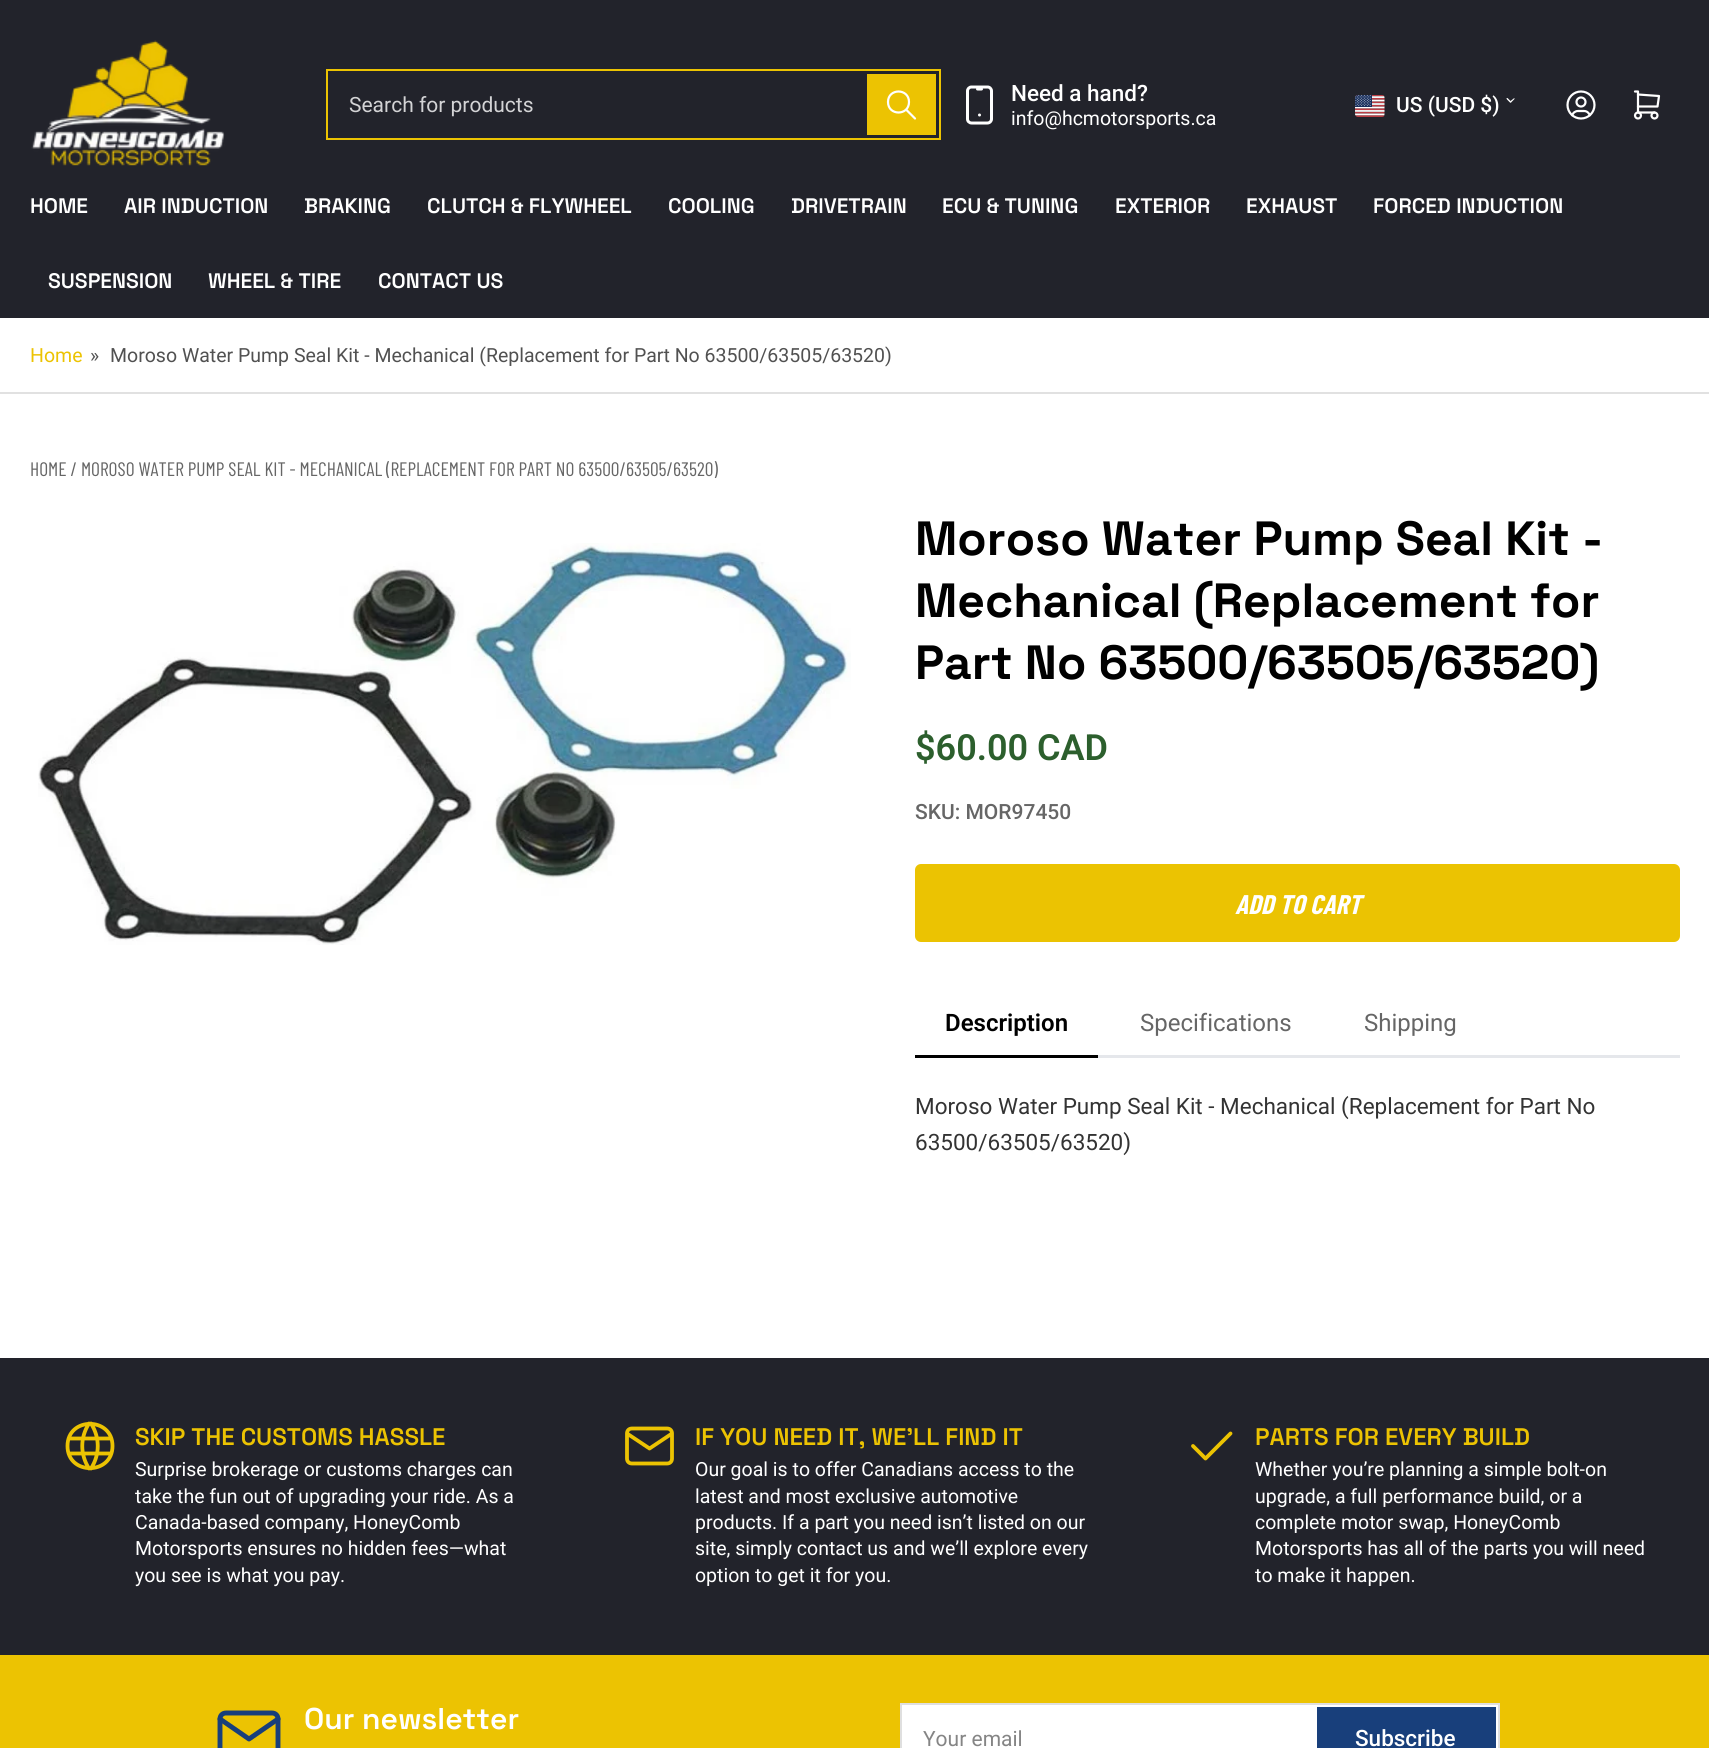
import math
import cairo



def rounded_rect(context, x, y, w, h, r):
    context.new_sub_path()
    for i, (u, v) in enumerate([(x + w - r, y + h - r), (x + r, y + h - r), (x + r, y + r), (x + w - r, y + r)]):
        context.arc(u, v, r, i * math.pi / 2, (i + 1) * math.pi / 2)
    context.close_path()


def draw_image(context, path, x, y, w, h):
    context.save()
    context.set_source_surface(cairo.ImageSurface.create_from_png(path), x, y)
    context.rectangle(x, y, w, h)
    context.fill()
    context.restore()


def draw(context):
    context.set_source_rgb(1, 1, 1)
    context.paint()
    context.set_source_rgb(34 / 255, 35 / 255, 43 / 255)
    context.rectangle(0, 0, 1709, 318)
    context.fill()
    draw_image(context, "images/1.png", 31, 40, 194, 126)
    context.rectangle(327, 70, 613, 69)
    context.set_source_rgb(236 / 255, 195 / 255, 2 / 255)
    context.stroke()
    context.rectangle(868, 75, 67, 59)
    context.stroke()
    context.rectangle(869, 76, 65, 57)
    context.fill()
    context.new_path()
    context.move_to(888, 102)
    context.curve_to(888, 116, 909, 116, 909, 102)
    context.curve_to(909, 88, 888, 88, 888, 102)
    context.move_to(915, 118.5)
    context.line_to(906, 109.5)
    context.set_source_rgb(1, 1, 1)
    context.set_line_width(2.2)
    context.set_line_cap(cairo.LineCap.ROUND)
    context.set_line_join(cairo.LineJoin.ROUND)
    context.stroke()
    draw_image(context, "images/2.png", 966, 85, 27, 40)
    draw_image(context, "images/3.png", 1355, 95, 30, 22)
    context.new_path()
    context.move_to(1507.5, 98)
    context.line_to(1510.5, 101)
    context.curve_to(1511, 102, 1511, 103, 1510, 102.5)
    context.line_to(1507.5, 100)
    context.curve_to(1507.5, 100, 1506.5, 99, 1506.5, 98.5)
    context.curve_to(1506.5, 98, 1507, 98, 1507.5, 98)
    context.close_path()
    context.fill()
    context.new_path()
    context.move_to(1510, 101.5)
    context.line_to(1513, 99)
    context.curve_to(1514, 98, 1515, 98, 1514.5, 99)
    context.line_to(1512, 101.5)
    context.curve_to(1512, 101.5, 1511, 103, 1510.5, 102.5)
    context.curve_to(1510, 102.5, 1510, 102, 1510, 101.5)
    context.close_path()
    context.fill()
    draw_image(context, "images/4.png", 1566, 90, 30, 30)
    draw_image(context, "images/5.png", 1633, 90, 28, 30)
    context.set_source_rgb(225 / 255, 225 / 255, 225 / 255)
    context.rectangle(0, 392, 1709, 2)
    context.fill()
    draw_image(context, "images/6.png", 38, 543, 813, 402)
    context.set_source_rgb(235 / 255, 195 / 255, 2 / 255)
    rounded_rect(context, 915, 864, 765, 78, 6)
    context.fill()
    context.set_source_rgb(229 / 255, 231 / 255, 235 / 255)
    context.rectangle(1098, 1055, 582, 3)
    context.fill()
    context.set_source_rgb(0, 0, 0)
    context.rectangle(915, 1055, 183, 3)
    context.fill()
    context.set_source_rgb(34 / 255, 35 / 255, 43 / 255)
    context.rectangle(0, 1358, 1709, 297)
    context.fill()
    context.new_path()
    context.move_to(67.5, 1446)
    context.curve_to(67.5, 1475.5, 112.5, 1475.5, 112.5, 1446)
    context.curve_to(112.5, 1416.5, 67.5, 1416.5, 67.5, 1446)
    context.move_to(69, 1438.5)
    context.line_to(111, 1438.5)
    context.move_to(69, 1453.5)
    context.line_to(111, 1453.5)
    context.move_to(89, 1423.5)
    context.curve_to(80, 1437.5, 80, 1454.5, 89, 1468.5)
    context.move_to(91, 1423.5)
    context.curve_to(100, 1437.5, 100, 1454.5, 91, 1468.5)
    context.set_source_rgb(236 / 255, 195 / 255, 2 / 255)
    context.set_line_width(3.8)
    context.stroke()
    context.new_path()
    context.move_to(627, 1433.5)
    context.curve_to(627, 1430.5, 629, 1428.5, 632, 1428.5)
    context.line_to(667, 1428.5)
    context.curve_to(670, 1428.5, 672, 1430.5, 672, 1433.5)
    context.line_to(672, 1458.5)
    context.curve_to(672, 1461.5, 670, 1463.5, 667, 1463.5)
    context.line_to(632, 1463.5)
    context.curve_to(629, 1463.5, 627, 1461.5, 627, 1458.5)
    context.close_path()
    context.move_to(627, 1433.5)
    context.line_to(649.5, 1448.5)
    context.line_to(672, 1433.5)
    context.stroke()
    context.new_path()
    context.move_to(1193, 1446)
    context.line_to(1205.5, 1458.5)
    context.line_to(1230.5, 1433.5)
    context.stroke()
    context.rectangle(0, 1655, 1709, 93)
    context.fill()
    context.new_path()
    context.move_to(220, 1719)
    context.curve_to(220, 1715.5, 222.5, 1713, 226, 1713)
    context.line_to(272, 1713)
    context.curve_to(275.5, 1713, 278, 1715.5, 278, 1719)
    context.line_to(278, 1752)
    context.curve_to(278, 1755.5, 275.5, 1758, 272, 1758)
    context.line_to(226, 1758)
    context.curve_to(222.5, 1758, 220, 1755.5, 220, 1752)
    context.close_path()
    context.set_source_rgb(24 / 255, 63 / 255, 123 / 255)
    context.set_line_width(4.9)
    context.stroke()
    context.new_path()
    context.move_to(220, 1719)
    context.line_to(249, 1739)
    context.line_to(278, 1719)
    context.stroke()
    context.set_source_rgb(1, 1, 1)
    context.rectangle(901, 1704, 598, 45)
    context.fill_preserve()
    context.set_source_rgb(223 / 255, 223 / 255, 223 / 255)
    context.set_line_width(2)
    context.set_line_cap(cairo.LineCap.BUTT)
    context.set_line_join(cairo.LineJoin.MITER)
    context.stroke()
    context.rectangle(1318, 1708, 177, 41)
    context.set_source_rgb(24 / 255, 63 / 255, 123 / 255)
    context.stroke()
    context.rectangle(1319, 1709, 175, 39)
    context.fill()
    context.select_font_face("Roboto")
    context.set_font_size(21)
    context.set_source_rgb(211 / 255, 211 / 255, 213 / 255)
    context.move_to(349, 112)
    context.show_text("Search for products")
    context.select_font_face("Roboto Medium")
    context.set_font_size(22.5)
    context.set_source_rgb(1, 1, 1)
    context.move_to(1011, 101)
    context.show_text("Need a hand?")
    context.select_font_face("Roboto")
    context.set_font_size(19.5)
    context.move_to(1011, 125)
    context.show_text("info@hcmotorsports.ca")
    context.select_font_face("Roboto Medium")
    context.set_font_size(21)
    context.move_to(1396, 112)
    context.show_text("US (USD $)")
    context.select_font_face("Space Grotesk SemiBold")
    context.move_to(30, 213)
    context.show_text("HOME")
    context.move_to(124, 213)
    context.show_text("AIR INDUCTION")
    context.move_to(304, 213)
    context.show_text("BRAKING")
    context.move_to(427, 213)
    context.show_text("CLUTCH & FLYWHEEL")
    context.move_to(668, 213)
    context.show_text("COOLING")
    context.move_to(791, 213)
    context.show_text("DRIVETRAIN")
    context.move_to(942, 213)
    context.show_text("ECU & TUNING")
    context.move_to(1115, 213)
    context.show_text("EXTERIOR")
    context.move_to(1246, 213)
    context.show_text("EXHAUST")
    context.move_to(1373, 213)
    context.show_text("FORCED INDUCTION")
    context.move_to(48, 288)
    context.show_text("SUSPENSION")
    context.move_to(208, 288)
    context.show_text("WHEEL & TIRE")
    context.move_to(378, 288)
    context.show_text("CONTACT US")
    context.select_font_face("Roboto")
    context.set_font_size(19.5)
    context.set_source_rgb(236 / 255, 195 / 255, 2 / 255)
    context.move_to(30, 362)
    context.show_text("Home")
    context.set_source_rgb(81 / 255, 81 / 255, 81 / 255)
    context.move_to(90, 362)
    context.show_text("»")
    context.move_to(110, 362)
    context.show_text("Moroso Water Pump Seal Kit - Mechanical (Replacement for Part No 63500/63505/63520)")
    context.select_font_face("Barlow Condensed")
    context.set_source_rgb(102 / 255, 102 / 255, 102 / 255)
    context.move_to(30, 476)
    context.show_text("HOME / MOROSO WATER PUMP SEAL KIT - MECHANICAL (REPLACEMENT FOR PART NO 63500/63505/63520)")
    context.select_font_face("Space Grotesk", cairo.FontSlant.NORMAL, cairo.FontWeight.BOLD)
    context.set_font_size(48)
    context.set_source_rgb(0, 0, 0)
    context.move_to(915, 555)
    context.show_text("Moroso Water Pump Seal Kit -")
    context.move_to(915, 617)
    context.show_text("Mechanical (Replacement for")
    context.move_to(915, 679)
    context.show_text("Part No 63500/63505/63520)")
    context.select_font_face("Roboto SemiBold")
    context.set_font_size(36)
    context.set_source_rgb(44 / 255, 95 / 255, 45 / 255)
    context.move_to(915, 760)
    context.show_text("$60.00 CAD")
    context.select_font_face("Roboto Medium")
    context.set_font_size(21)
    context.set_source_rgb(102 / 255, 102 / 255, 102 / 255)
    context.move_to(915, 819)
    context.show_text("SKU: MOR97450")
    context.select_font_face("Barlow Condensed", cairo.FontSlant.ITALIC, cairo.FontWeight.BOLD)
    context.set_font_size(27)
    context.set_source_rgb(1, 1, 1)
    context.move_to(1235, 914)
    context.show_text("ADD TO CART")
    context.select_font_face("Roboto SemiBold")
    context.set_font_size(24)
    context.set_source_rgb(0, 0, 0)
    context.move_to(945, 1031)
    context.show_text("Description")
    context.select_font_face("Roboto")
    context.set_source_rgb(102 / 255, 102 / 255, 102 / 255)
    context.move_to(1140, 1031)
    context.show_text("Specifications")
    context.move_to(1364, 1031)
    context.show_text("Shipping")
    context.set_font_size(22.5)
    context.set_source_rgb(51 / 255, 51 / 255, 51 / 255)
    context.move_to(915, 1114)
    context.show_text("Moroso Water Pump Seal Kit - Mechanical (Replacement for Part No")
    context.move_to(915, 1150)
    context.show_text("63500/63505/63520)")
    context.select_font_face("Space Grotesk SemiBold")
    context.set_font_size(24)
    context.set_source_rgb(236 / 255, 195 / 255, 2 / 255)
    context.move_to(135, 1445)
    context.show_text("SKIP THE CUSTOMS HASSLE")
    context.select_font_face("Roboto")
    context.set_font_size(19.5)
    context.set_source_rgb(1, 1, 1)
    context.move_to(135, 1476)
    context.show_text("Surprise brokerage or customs charges can")
    context.move_to(135, 1503)
    context.show_text("take the fun out of upgrading your ride. As a")
    context.move_to(135, 1529)
    context.show_text("Canada-based company, HoneyComb")
    context.move_to(135, 1555)
    context.show_text("Motorsports ensures no hidden fees—what")
    context.move_to(135, 1582)
    context.show_text("you see is what you pay.")
    context.select_font_face("Space Grotesk SemiBold")
    context.set_font_size(24)
    context.set_source_rgb(236 / 255, 195 / 255, 2 / 255)
    context.move_to(695, 1445)
    context.show_text("IF YOU NEED IT, WE’LL FIND IT")
    context.select_font_face("Roboto")
    context.set_font_size(19.5)
    context.set_source_rgb(1, 1, 1)
    context.move_to(695, 1476)
    context.show_text("Our goal is to offer Canadians access to the")
    context.move_to(695, 1503)
    context.show_text("latest and most exclusive automotive")
    context.move_to(695, 1529)
    context.show_text("products. If a part you need isn’t listed on our")
    context.move_to(695, 1555)
    context.show_text("site, simply contact us and we’ll explore every")
    context.move_to(695, 1582)
    context.show_text("option to get it for you.")
    context.select_font_face("Space Grotesk SemiBold")
    context.set_font_size(24)
    context.set_source_rgb(236 / 255, 195 / 255, 2 / 255)
    context.move_to(1255, 1445)
    context.show_text("PARTS FOR EVERY BUILD")
    context.select_font_face("Roboto")
    context.set_font_size(19.5)
    context.set_source_rgb(1, 1, 1)
    context.move_to(1255, 1476)
    context.show_text("Whether you’re planning a simple bolt-on")
    context.move_to(1255, 1503)
    context.show_text("upgrade, a full performance build, or a")
    context.move_to(1255, 1529)
    context.show_text("complete motor swap, HoneyComb")
    context.move_to(1255, 1555)
    context.show_text("Motorsports has all of the parts you will need")
    context.move_to(1255, 1582)
    context.show_text("to make it happen.")
    context.select_font_face("Space Grotesk SemiBold")
    context.set_font_size(30)
    context.move_to(304, 1729)
    context.show_text("Our newsletter")
    context.select_font_face("Roboto")
    context.set_font_size(21)
    context.set_source_rgb(133 / 255, 133 / 255, 133 / 255)
    context.move_to(923, 1746)
    context.show_text("Your email")
    context.select_font_face("Roboto Medium")
    context.set_font_size(22.5)
    context.set_source_rgb(1, 1, 1)
    context.move_to(1355, 1746)
    context.show_text("Subscribe")


surface = cairo.ImageSurface(cairo.Format.RGB24, 1709, 1748)
context = cairo.Context(surface)
options = cairo.FontOptions()
options.set_hint_metrics(cairo.HintMetrics.OFF)
options.set_hint_style(cairo.HintStyle.NONE)
context.set_font_options(options)
context.set_miter_limit(4)
draw(context)
surface.write_to_png("out.png")
